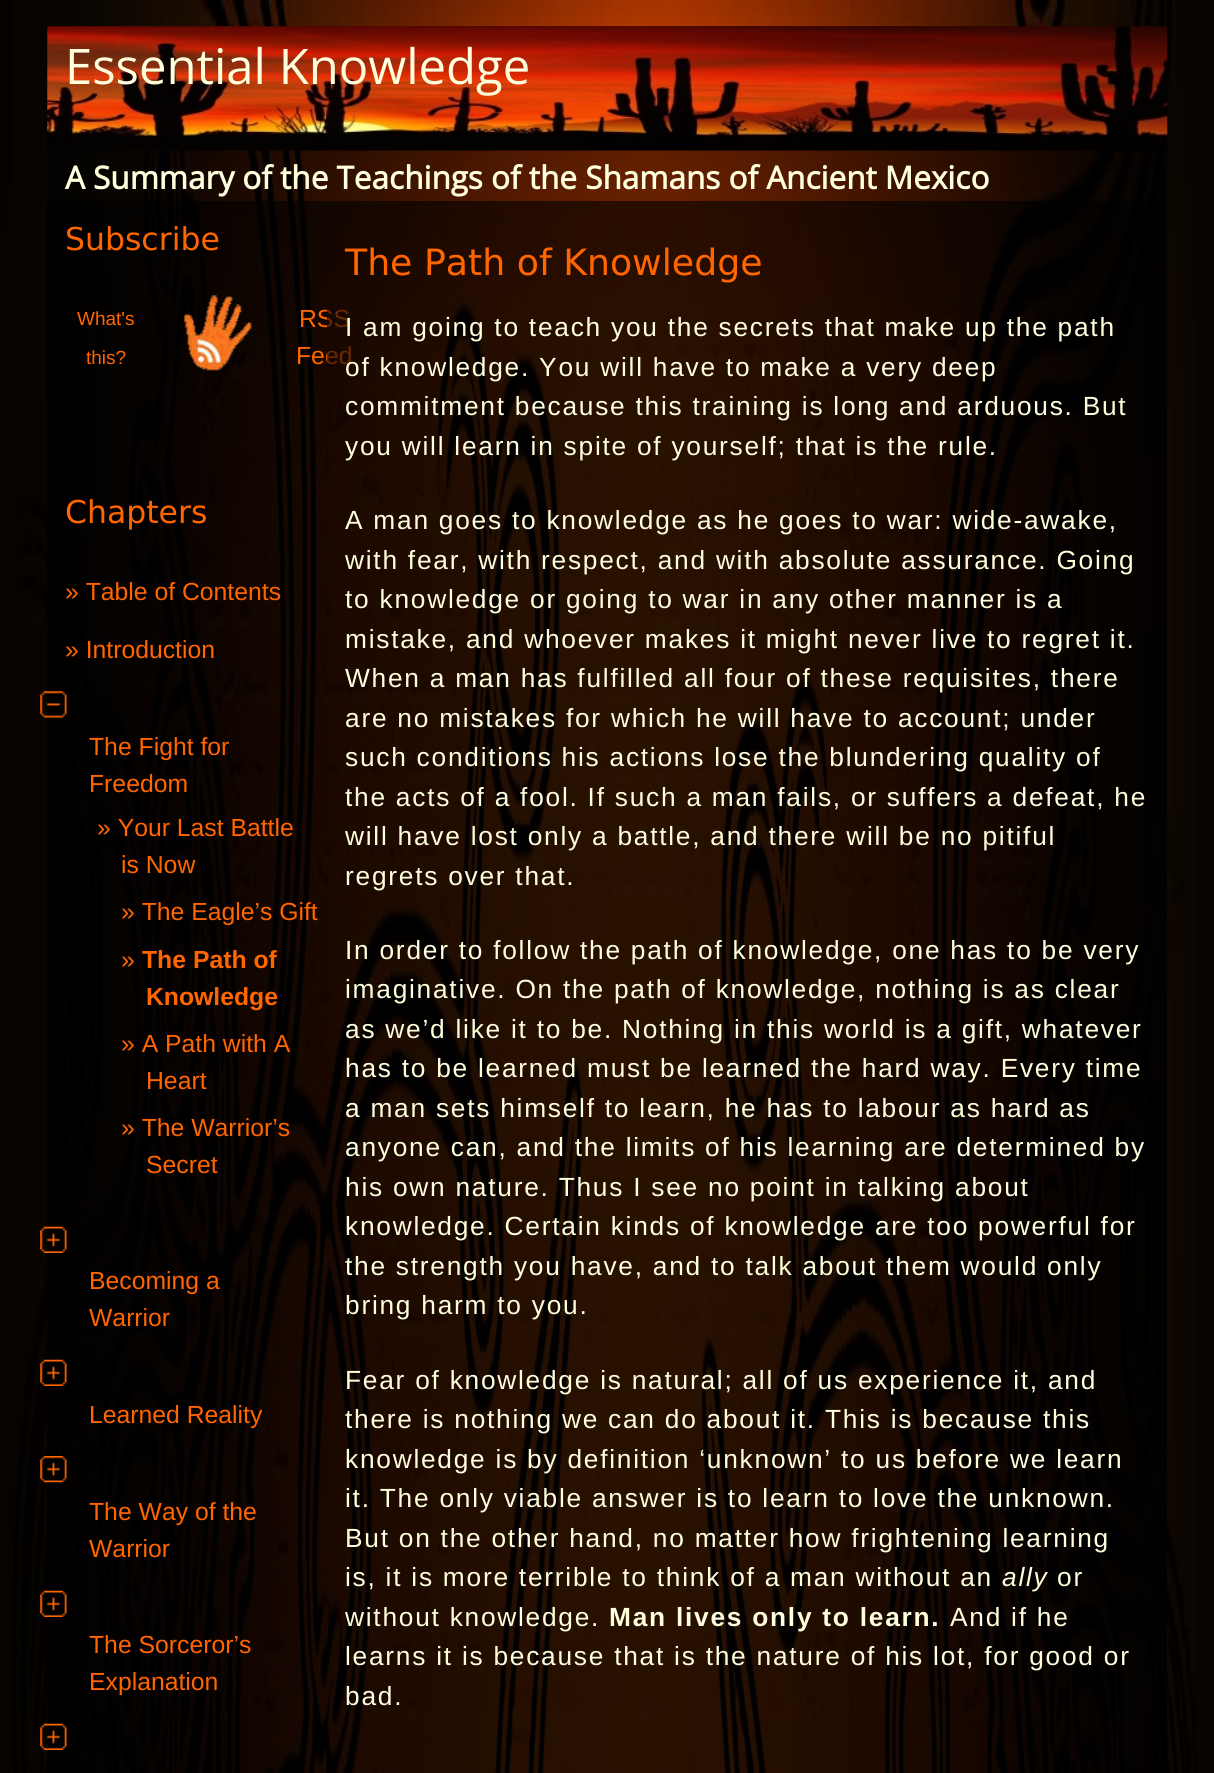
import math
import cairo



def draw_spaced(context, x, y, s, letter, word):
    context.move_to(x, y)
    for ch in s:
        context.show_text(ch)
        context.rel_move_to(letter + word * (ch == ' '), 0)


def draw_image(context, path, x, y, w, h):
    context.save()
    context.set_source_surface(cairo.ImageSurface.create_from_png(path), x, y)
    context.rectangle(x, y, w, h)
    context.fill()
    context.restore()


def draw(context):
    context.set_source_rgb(1, 1, 1)
    context.paint()
    draw_image(context, "images/1.png", 0, 0, 1214, 1773)
    draw_image(context, "images/2.png", 47, 26, 1121, 125)
    context.set_source_rgba(0, 0, 0, 0.6)
    context.rectangle(47, 201, 280, 1572)
    context.fill()
    draw_image(context, "images/3.png", 184, 295, 68, 76)
    draw_image(context, "images/4.png", 40, 691, 27, 27)
    draw_image(context, "images/5.png", 40, 1226, 27, 27)
    draw_image(context, "images/6.png", 40, 1359, 27, 27)
    draw_image(context, "images/7.png", 40, 1456, 27, 27)
    draw_image(context, "images/8.png", 40, 1590, 27, 27)
    draw_image(context, "images/9.png", 40, 1723, 27, 27)
    context.select_font_face("Open Sans")
    context.set_font_size(49)
    context.set_source_rgb(1, 1, 221 / 255)
    context.move_to(65, 84)
    context.show_text("Essential Knowledge")
    context.select_font_face("Open Sans", cairo.FontSlant.NORMAL, cairo.FontWeight.BOLD)
    context.set_font_size(31.5)
    context.move_to(65, 189)
    context.show_text("A Summary of the Teachings of the Shamans of Ancient Mexico")
    context.select_font_face("DejaVu Sans")
    context.set_source_rgb(1, 102 / 255, 0)
    context.move_to(65, 250)
    context.show_text("Subscribe")
    context.select_font_face("Liberation Sans")
    context.set_font_size(19)
    context.move_to(77, 325)
    context.show_text("What's")
    context.move_to(86, 364)
    context.show_text("this?")
    context.set_font_size(24.75)
    context.move_to(299, 327)
    context.show_text("RSS")
    context.move_to(296, 364)
    context.show_text("Feed")
    context.select_font_face("DejaVu Sans")
    context.set_font_size(31.5)
    context.move_to(65, 523)
    context.show_text("Chapters")
    context.select_font_face("Liberation Sans")
    context.set_font_size(24.75)
    context.move_to(65, 600)
    context.show_text("» Table of Contents")
    context.move_to(65, 658)
    context.show_text("» Introduction")
    context.move_to(89, 755)
    context.show_text("The Fight for")
    context.move_to(89, 792)
    context.show_text("Freedom")
    context.move_to(97, 836)
    context.show_text("» Your Last Battle")
    context.move_to(121, 873)
    context.show_text("is Now")
    context.move_to(121, 920)
    context.show_text("» The Eagle’s Gift")
    context.move_to(121, 968)
    context.show_text("»")
    context.select_font_face("Liberation Sans", cairo.FontSlant.NORMAL, cairo.FontWeight.BOLD)
    context.move_to(142, 968)
    context.show_text("The Path of")
    context.move_to(146, 1005)
    context.show_text("Knowledge")
    context.select_font_face("Liberation Sans")
    context.move_to(121, 1052)
    context.show_text("» A Path with A")
    context.move_to(146, 1089)
    context.show_text("Heart")
    context.move_to(121, 1136)
    context.show_text("» The Warrior’s")
    context.move_to(146, 1173)
    context.show_text("Secret")
    context.move_to(89, 1289)
    context.show_text("Becoming a")
    context.move_to(89, 1326)
    context.show_text("Warrior")
    context.move_to(89, 1423)
    context.show_text("Learned Reality")
    context.move_to(89, 1520)
    context.show_text("The Way of the")
    context.move_to(89, 1557)
    context.show_text("Warrior")
    context.move_to(89, 1653)
    context.show_text("The Sorceror’s")
    context.move_to(89, 1690)
    context.show_text("Explanation")
    context.set_source_rgba(0, 0, 0, 0.6)
    context.rectangle(327, 201, 840, 1572)
    context.fill()
    context.select_font_face("DejaVu Sans")
    context.set_font_size(36.25)
    context.set_source_rgb(1, 102 / 255, 0)
    context.move_to(345, 275)
    context.show_text("The Path of Knowledge")
    context.select_font_face("Liberation Sans")
    context.set_font_size(26.3)
    context.set_source_rgb(1, 1, 221 / 255)
    draw_spaced(context, 345, 336, "I am going to teach you the secrets that make up the path", 1.75, 0)
    draw_spaced(context, 345, 376, "of knowledge. You will have to make a very deep", 1.75, 0)
    draw_spaced(context, 345, 415, "commitment because this training is long and arduous. But", 1.75, 0)
    draw_spaced(context, 345, 455, "you will learn in spite of yourself; that is the rule.", 1.75, 0)
    draw_spaced(context, 345, 529, "A man goes to knowledge as he goes to war: wide-awake,", 1.75, 0)
    draw_spaced(context, 345, 569, "with fear, with respect, and with absolute assurance. Going", 1.75, 0)
    draw_spaced(context, 345, 608, "to knowledge or going to war in any other manner is a", 1.75, 0)
    draw_spaced(context, 345, 648, "mistake, and whoever makes it might never live to regret it.", 1.75, 0)
    draw_spaced(context, 345, 687, "When a man has fulfilled all four of these requisites, there", 1.75, 0)
    draw_spaced(context, 345, 727, "are no mistakes for which he will have to account; under", 1.75, 0)
    draw_spaced(context, 345, 766, "such conditions his actions lose the blundering quality of", 1.75, 0)
    draw_spaced(context, 345, 806, "the acts of a fool. If such a man fails, or suffers a defeat, he", 1.75, 0)
    draw_spaced(context, 345, 845, "will have lost only a battle, and there will be no pitiful", 1.75, 0)
    draw_spaced(context, 345, 885, "regrets over that.", 1.75, 0)
    draw_spaced(context, 345, 959, "In order to follow the path of knowledge, one has to be very", 1.75, 0)
    draw_spaced(context, 345, 998, "imaginative. On the path of knowledge, nothing is as clear", 1.75, 0)
    draw_spaced(context, 345, 1038, "as we’d like it to be. Nothing in this world is a gift, whatever", 1.75, 0)
    draw_spaced(context, 345, 1077, "has to be learned must be learned the hard way. Every time", 1.75, 0)
    draw_spaced(context, 345, 1117, "a man sets himself to learn, he has to labour as hard as", 1.75, 0)
    draw_spaced(context, 345, 1156, "anyone can, and the limits of his learning are determined by", 1.75, 0)
    draw_spaced(context, 345, 1196, "his own nature. Thus I see no point in talking about", 1.75, 0)
    draw_spaced(context, 345, 1235, "knowledge. Certain kinds of knowledge are too powerful for", 1.75, 0)
    draw_spaced(context, 345, 1275, "the strength you have, and to talk about them would only", 1.75, 0)
    draw_spaced(context, 345, 1314, "bring harm to you.", 1.75, 0)
    draw_spaced(context, 345, 1389, "Fear of knowledge is natural; all of us experience it, and", 1.75, 0)
    draw_spaced(context, 345, 1428, "there is nothing we can do about it. This is because this", 1.75, 0)
    draw_spaced(context, 345, 1468, "knowledge is by definition ‘unknown’ to us before we learn", 1.75, 0)
    draw_spaced(context, 345, 1507, "it. The only viable answer is to learn to love the unknown.", 1.75, 0)
    draw_spaced(context, 345, 1547, "But on the other hand, no matter how frightening learning", 1.75, 0)
    draw_spaced(context, 345, 1586, "is, it is more terrible to think of a man without an", 1.75, 0)
    context.select_font_face("Liberation Sans", cairo.FontSlant.ITALIC)
    draw_spaced(context, 1002, 1586, "ally", 1.75, 0)
    context.select_font_face("Liberation Sans")
    draw_spaced(context, 1057, 1586, "or", 1.75, 0)
    draw_spaced(context, 345, 1626, "without knowledge.", 1.75, 0)
    context.select_font_face("Liberation Sans", cairo.FontSlant.NORMAL, cairo.FontWeight.BOLD)
    draw_spaced(context, 609, 1626, "Man lives only to learn.", 1.75, 0)
    context.select_font_face("Liberation Sans")
    draw_spaced(context, 950, 1626, "And if he", 1.75, 0)
    draw_spaced(context, 345, 1665, "learns it is because that is the nature of his lot, for good or", 1.75, 0)
    draw_spaced(context, 345, 1705, "bad.", 1.75, 0)


surface = cairo.ImageSurface(cairo.Format.RGB24, 1214, 1773)
context = cairo.Context(surface)
options = cairo.FontOptions()
options.set_hint_metrics(cairo.HintMetrics.OFF)
options.set_hint_style(cairo.HintStyle.NONE)
context.set_font_options(options)
context.set_miter_limit(4)
draw(context)
surface.write_to_png("out.png")
